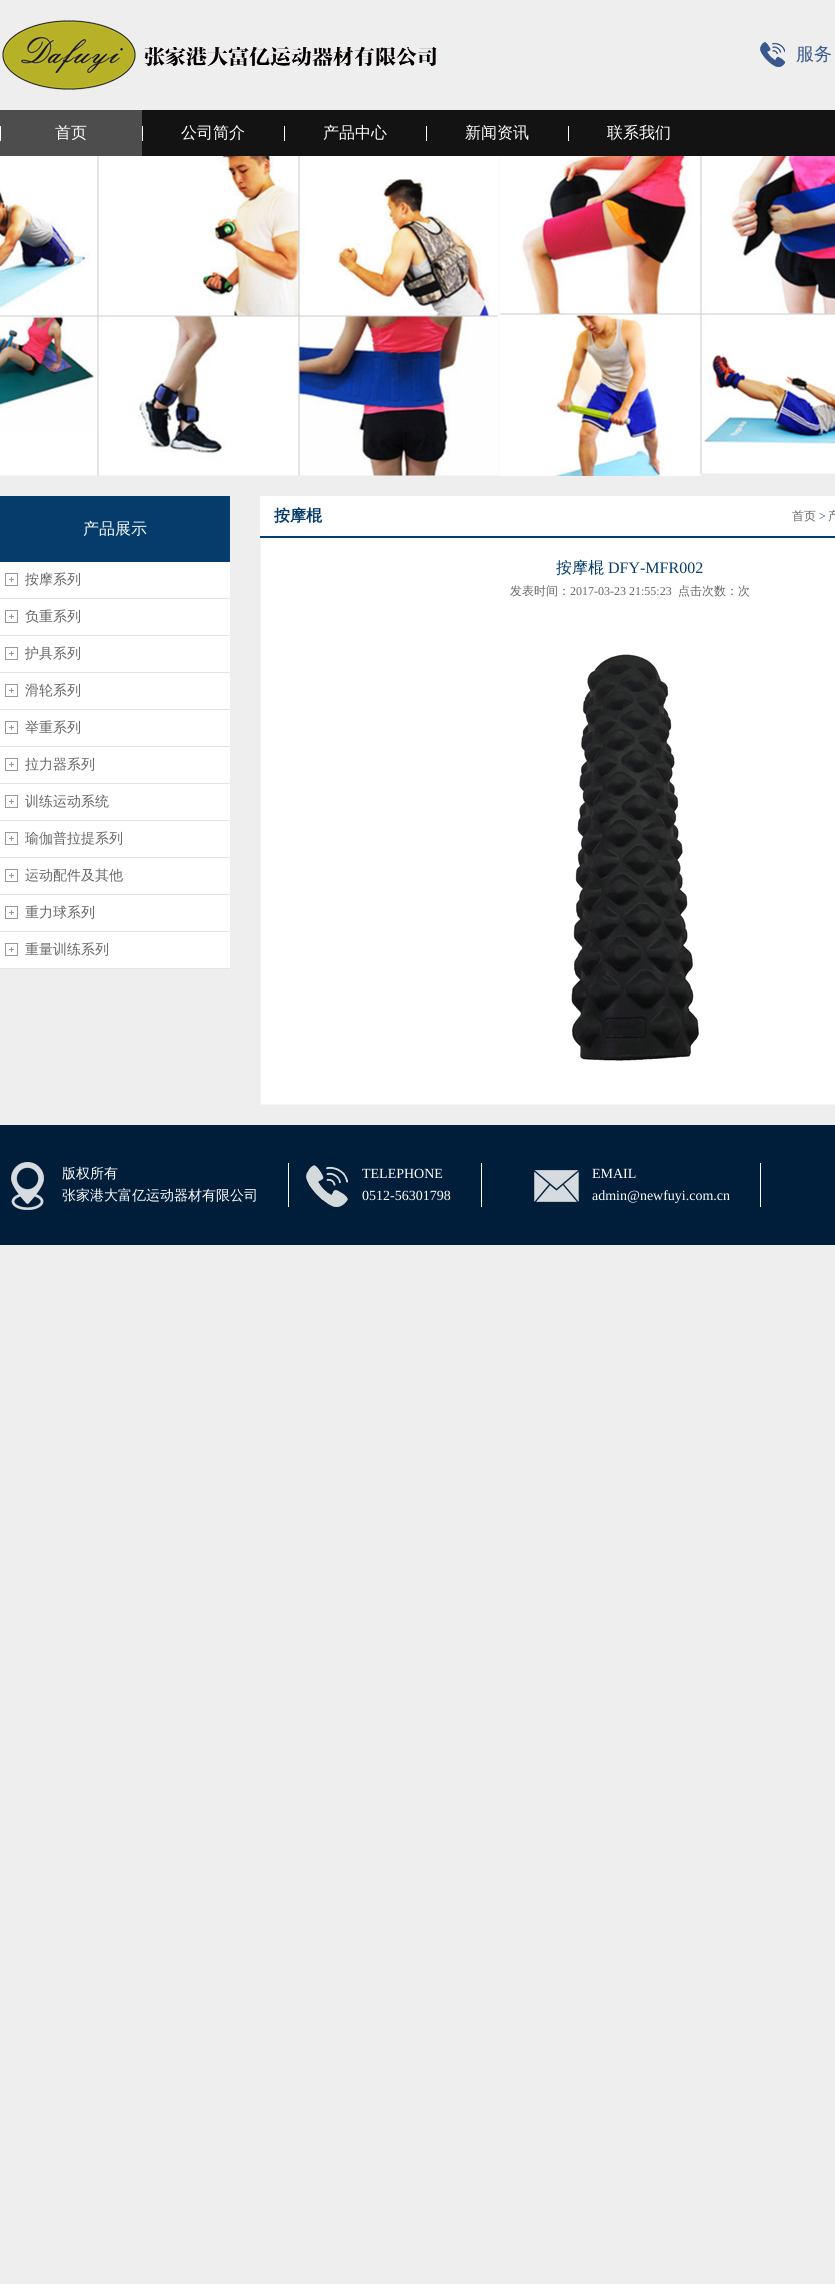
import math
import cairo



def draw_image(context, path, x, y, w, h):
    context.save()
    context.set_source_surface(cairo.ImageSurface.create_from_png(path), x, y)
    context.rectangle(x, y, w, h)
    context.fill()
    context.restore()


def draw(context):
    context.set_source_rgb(238 / 255, 238 / 255, 238 / 255)
    context.paint()
    draw_image(context, "images/1.png", 2, 20, 435, 70)
    draw_image(context, "images/2.png", 760, 42, 25, 25)
    context.set_source_rgb(19 / 255, 19 / 255, 19 / 255)
    context.rectangle(142, 110, 693, 46)
    context.fill()
    context.set_source_rgb(77 / 255, 77 / 255, 77 / 255)
    context.rectangle(0, 110, 142, 46)
    context.fill()
    context.set_source_rgb(1, 1, 1)
    context.rectangle(0, 126, 1, 15)
    context.fill()
    context.rectangle(142, 126, 1, 15)
    context.fill()
    context.rectangle(284, 126, 1, 15)
    context.fill()
    context.rectangle(426, 126, 1, 15)
    context.fill()
    context.rectangle(568, 126, 1, 15)
    context.fill()
    draw_image(context, "images/3.png", 0, 156, 835, 320)
    context.set_source_rgb(5 / 255, 60 / 255, 107 / 255)
    context.rectangle(0, 496, 230, 66)
    context.fill()
    context.set_source_rgb(1, 1, 1)
    context.rectangle(0, 562, 230, 36)
    context.fill()
    draw_image(context, "images/4.png", 5, 573, 13, 13)
    context.set_source_rgb(228 / 255, 228 / 255, 228 / 255)
    context.rectangle(0, 598, 230, 1)
    context.fill()
    context.set_source_rgb(1, 1, 1)
    context.rectangle(0, 599, 230, 36)
    context.fill()
    draw_image(context, "images/4.png", 5, 610, 13, 13)
    context.set_source_rgb(228 / 255, 228 / 255, 228 / 255)
    context.rectangle(0, 635, 230, 1)
    context.fill()
    context.set_source_rgb(1, 1, 1)
    context.rectangle(0, 636, 230, 36)
    context.fill()
    draw_image(context, "images/4.png", 5, 647, 13, 13)
    context.set_source_rgb(228 / 255, 228 / 255, 228 / 255)
    context.rectangle(0, 672, 230, 1)
    context.fill()
    context.set_source_rgb(1, 1, 1)
    context.rectangle(0, 673, 230, 36)
    context.fill()
    draw_image(context, "images/4.png", 5, 684, 13, 13)
    context.set_source_rgb(228 / 255, 228 / 255, 228 / 255)
    context.rectangle(0, 709, 230, 1)
    context.fill()
    context.set_source_rgb(1, 1, 1)
    context.rectangle(0, 710, 230, 36)
    context.fill()
    draw_image(context, "images/4.png", 5, 721, 13, 13)
    context.set_source_rgb(228 / 255, 228 / 255, 228 / 255)
    context.rectangle(0, 746, 230, 1)
    context.fill()
    context.set_source_rgb(1, 1, 1)
    context.rectangle(0, 747, 230, 36)
    context.fill()
    draw_image(context, "images/4.png", 5, 758, 13, 13)
    context.set_source_rgb(228 / 255, 228 / 255, 228 / 255)
    context.rectangle(0, 783, 230, 1)
    context.fill()
    context.set_source_rgb(1, 1, 1)
    context.rectangle(0, 784, 230, 36)
    context.fill()
    draw_image(context, "images/4.png", 5, 795, 13, 13)
    context.set_source_rgb(228 / 255, 228 / 255, 228 / 255)
    context.rectangle(0, 820, 230, 1)
    context.fill()
    context.set_source_rgb(1, 1, 1)
    context.rectangle(0, 821, 230, 36)
    context.fill()
    draw_image(context, "images/4.png", 5, 832, 13, 13)
    context.set_source_rgb(228 / 255, 228 / 255, 228 / 255)
    context.rectangle(0, 857, 230, 1)
    context.fill()
    context.set_source_rgb(1, 1, 1)
    context.rectangle(0, 858, 230, 36)
    context.fill()
    draw_image(context, "images/4.png", 5, 869, 13, 13)
    context.set_source_rgb(228 / 255, 228 / 255, 228 / 255)
    context.rectangle(0, 894, 230, 1)
    context.fill()
    context.set_source_rgb(1, 1, 1)
    context.rectangle(0, 895, 230, 36)
    context.fill()
    draw_image(context, "images/4.png", 5, 906, 13, 13)
    context.set_source_rgb(228 / 255, 228 / 255, 228 / 255)
    context.rectangle(0, 931, 230, 1)
    context.fill()
    context.set_source_rgb(1, 1, 1)
    context.rectangle(0, 932, 230, 36)
    context.fill()
    draw_image(context, "images/4.png", 5, 943, 13, 13)
    context.set_source_rgb(228 / 255, 228 / 255, 228 / 255)
    context.rectangle(0, 968, 230, 1)
    context.fill()
    context.set_source_rgb(1, 1, 1)
    context.rectangle(260, 496, 575, 608)
    context.fill()
    context.set_source_rgb(5 / 255, 60 / 255, 107 / 255)
    context.rectangle(260, 536, 575, 2)
    context.fill()
    context.set_source_rgb(245 / 255, 245 / 255, 245 / 255)
    context.rectangle(260, 1104, 575, 1)
    context.fill()
    context.rectangle(260, 538, 1, 567)
    context.fill()
    draw_image(context, "images/5.png", 571, 654, 128, 407)
    context.set_source_rgb(0, 30 / 255, 58 / 255)
    context.rectangle(0, 1125, 835, 120)
    context.fill()
    draw_image(context, "images/6.png", 11, 1162, 33, 48)
    context.set_source_rgb(1, 1, 1)
    context.rectangle(288, 1163, 1, 44)
    context.fill()
    draw_image(context, "images/7.png", 306, 1165, 42, 42)
    context.rectangle(481, 1163, 1, 44)
    context.fill()
    draw_image(context, "images/8.png", 534, 1170, 45, 32)
    context.rectangle(760, 1163, 1, 44)
    context.fill()
    context.select_font_face("WenQuanYi Zen Hei Medium")
    context.set_font_size(18)
    context.set_source_rgb(57 / 255, 89 / 255, 140 / 255)
    context.move_to(796, 60)
    context.show_text("服务")
    context.set_font_size(16)
    context.set_source_rgb(1, 1, 1)
    context.move_to(55, 138)
    context.show_text("首页")
    context.move_to(181, 138)
    context.show_text("公司简介")
    context.move_to(323, 138)
    context.show_text("产品中心")
    context.move_to(465, 138)
    context.show_text("新闻资讯")
    context.move_to(607, 138)
    context.show_text("联系我们")
    context.move_to(83, 534)
    context.show_text("产品展示")
    context.set_font_size(14)
    context.set_source_rgb(102 / 255, 102 / 255, 102 / 255)
    context.move_to(25, 584)
    context.show_text("按摩系列")
    context.move_to(25, 621)
    context.show_text("负重系列")
    context.move_to(25, 658)
    context.show_text("护具系列")
    context.move_to(25, 695)
    context.show_text("滑轮系列")
    context.move_to(25, 732)
    context.show_text("举重系列")
    context.move_to(25, 769)
    context.show_text("拉力器系列")
    context.move_to(25, 806)
    context.show_text("训练运动系统")
    context.move_to(25, 843)
    context.show_text("瑜伽普拉提系列")
    context.move_to(25, 880)
    context.show_text("运动配件及其他")
    context.move_to(25, 917)
    context.show_text("重力球系列")
    context.move_to(25, 954)
    context.show_text("重量训练系列")
    context.select_font_face("WenQuanYi Zen Hei", cairo.FontSlant.NORMAL, cairo.FontWeight.BOLD)
    context.set_font_size(16)
    context.set_source_rgb(5 / 255, 60 / 255, 107 / 255)
    context.move_to(274, 521)
    context.show_text("按摩棍")
    context.select_font_face("WenQuanYi Zen Hei Medium")
    context.set_font_size(12)
    context.set_source_rgb(102 / 255, 102 / 255, 102 / 255)
    context.move_to(792, 520)
    context.show_text("首页")
    context.select_font_face("Liberation Serif")
    context.set_source_rgb(5 / 255, 60 / 255, 107 / 255)
    context.move_to(819, 520)
    context.show_text(">")
    context.select_font_face("WenQuanYi Zen Hei Medium")
    context.set_source_rgb(102 / 255, 102 / 255, 102 / 255)
    context.move_to(828, 520)
    context.show_text("产")
    context.set_font_size(16)
    context.set_source_rgb(5 / 255, 60 / 255, 107 / 255)
    context.move_to(556, 573)
    context.show_text("按摩棍")
    context.select_font_face("Liberation Serif")
    context.move_to(608, 573)
    context.show_text("DFY-MFR002")
    context.select_font_face("WenQuanYi Zen Hei Medium")
    context.set_font_size(12)
    context.set_source_rgb(102 / 255, 102 / 255, 102 / 255)
    context.move_to(510, 595)
    context.show_text("发表时间：")
    context.select_font_face("Liberation Serif")
    context.move_to(570, 595)
    context.show_text("2017-03-23 21:55:23")
    context.select_font_face("WenQuanYi Zen Hei Medium")
    context.move_to(678, 595)
    context.show_text("点击次数：次")
    context.set_font_size(14)
    context.set_source_rgb(1, 1, 1)
    context.move_to(62, 1178)
    context.show_text("版权所有")
    context.move_to(62, 1200)
    context.show_text("张家港大富亿运动器材有限公司")
    context.select_font_face("Liberation Serif")
    context.move_to(362, 1178)
    context.show_text("TELEPHONE")
    context.move_to(362, 1200)
    context.show_text("0512-56301798")
    context.move_to(592, 1178)
    context.show_text("EMAIL")
    context.move_to(592, 1200)
    context.show_text("admin@newfuyi.com.cn")


surface = cairo.ImageSurface(cairo.Format.RGB24, 835, 2284)
context = cairo.Context(surface)
options = cairo.FontOptions()
options.set_hint_metrics(cairo.HintMetrics.OFF)
options.set_hint_style(cairo.HintStyle.NONE)
context.set_font_options(options)
context.set_miter_limit(4)
draw(context)
surface.write_to_png("out.png")
